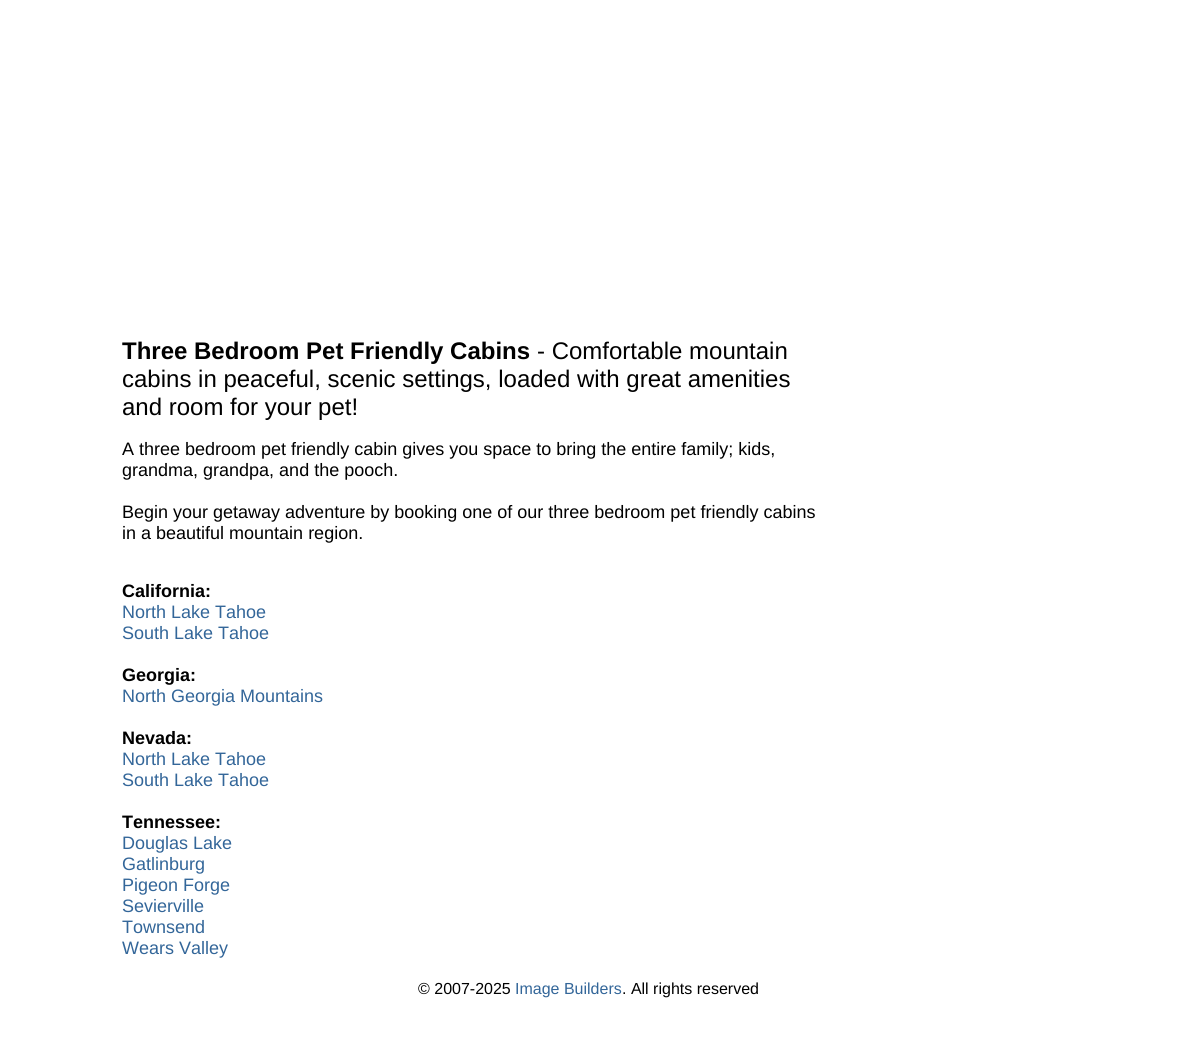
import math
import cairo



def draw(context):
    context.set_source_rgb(1, 1, 1)
    context.paint()
    context.select_font_face("Liberation Sans", cairo.FontSlant.NORMAL, cairo.FontWeight.BOLD)
    context.set_font_size(24)
    context.set_source_rgb(0, 0, 0)
    context.move_to(122, 359)
    context.show_text("Three Bedroom Pet Friendly Cabins")
    context.select_font_face("Liberation Sans")
    context.move_to(537, 359)
    context.show_text("- Comfortable mountain")
    context.move_to(122, 387)
    context.show_text("cabins in peaceful, scenic settings, loaded with great amenities")
    context.move_to(122, 415)
    context.show_text("and room for your pet!")
    context.set_font_size(18)
    context.move_to(122, 455)
    context.show_text("A three bedroom pet friendly cabin gives you space to bring the entire family; kids,")
    context.move_to(122, 476)
    context.show_text("grandma, grandpa, and the pooch.")
    context.move_to(122, 518)
    context.show_text("Begin your getaway adventure by booking one of our three bedroom pet friendly cabins")
    context.move_to(122, 539)
    context.show_text("in a beautiful mountain region.")
    context.select_font_face("Liberation Sans", cairo.FontSlant.NORMAL, cairo.FontWeight.BOLD)
    context.move_to(122, 597)
    context.show_text("California:")
    context.select_font_face("Liberation Sans")
    context.set_source_rgb(51 / 255, 102 / 255, 153 / 255)
    context.move_to(122, 618)
    context.show_text("North Lake Tahoe")
    context.move_to(122, 639)
    context.show_text("South Lake Tahoe")
    context.select_font_face("Liberation Sans", cairo.FontSlant.NORMAL, cairo.FontWeight.BOLD)
    context.set_source_rgb(0, 0, 0)
    context.move_to(122, 681)
    context.show_text("Georgia:")
    context.select_font_face("Liberation Sans")
    context.set_source_rgb(51 / 255, 102 / 255, 153 / 255)
    context.move_to(122, 702)
    context.show_text("North Georgia Mountains")
    context.select_font_face("Liberation Sans", cairo.FontSlant.NORMAL, cairo.FontWeight.BOLD)
    context.set_source_rgb(0, 0, 0)
    context.move_to(122, 744)
    context.show_text("Nevada:")
    context.select_font_face("Liberation Sans")
    context.set_source_rgb(51 / 255, 102 / 255, 153 / 255)
    context.move_to(122, 765)
    context.show_text("North Lake Tahoe")
    context.move_to(122, 786)
    context.show_text("South Lake Tahoe")
    context.select_font_face("Liberation Sans", cairo.FontSlant.NORMAL, cairo.FontWeight.BOLD)
    context.set_source_rgb(0, 0, 0)
    context.move_to(122, 828)
    context.show_text("Tennessee:")
    context.select_font_face("Liberation Sans")
    context.set_source_rgb(51 / 255, 102 / 255, 153 / 255)
    context.move_to(122, 849)
    context.show_text("Douglas Lake")
    context.move_to(122, 870)
    context.show_text("Gatlinburg")
    context.move_to(122, 891)
    context.show_text("Pigeon Forge")
    context.move_to(122, 912)
    context.show_text("Sevierville")
    context.move_to(122, 933)
    context.show_text("Townsend")
    context.move_to(122, 954)
    context.show_text("Wears Valley")
    context.set_font_size(16)
    context.set_source_rgb(0, 0, 0)
    context.move_to(418, 994)
    context.show_text("© 2007-2025")
    context.set_source_rgb(51 / 255, 102 / 255, 153 / 255)
    context.move_to(515, 994)
    context.show_text("Image Builders")
    context.set_source_rgb(0, 0, 0)
    context.move_to(622, 994)
    context.show_text(". All rights reserved")


surface = cairo.ImageSurface(cairo.Format.RGB24, 1177, 1055)
context = cairo.Context(surface)
options = cairo.FontOptions()
options.set_hint_metrics(cairo.HintMetrics.OFF)
options.set_hint_style(cairo.HintStyle.NONE)
context.set_font_options(options)
context.set_miter_limit(4)
draw(context)
surface.write_to_png("out.png")
